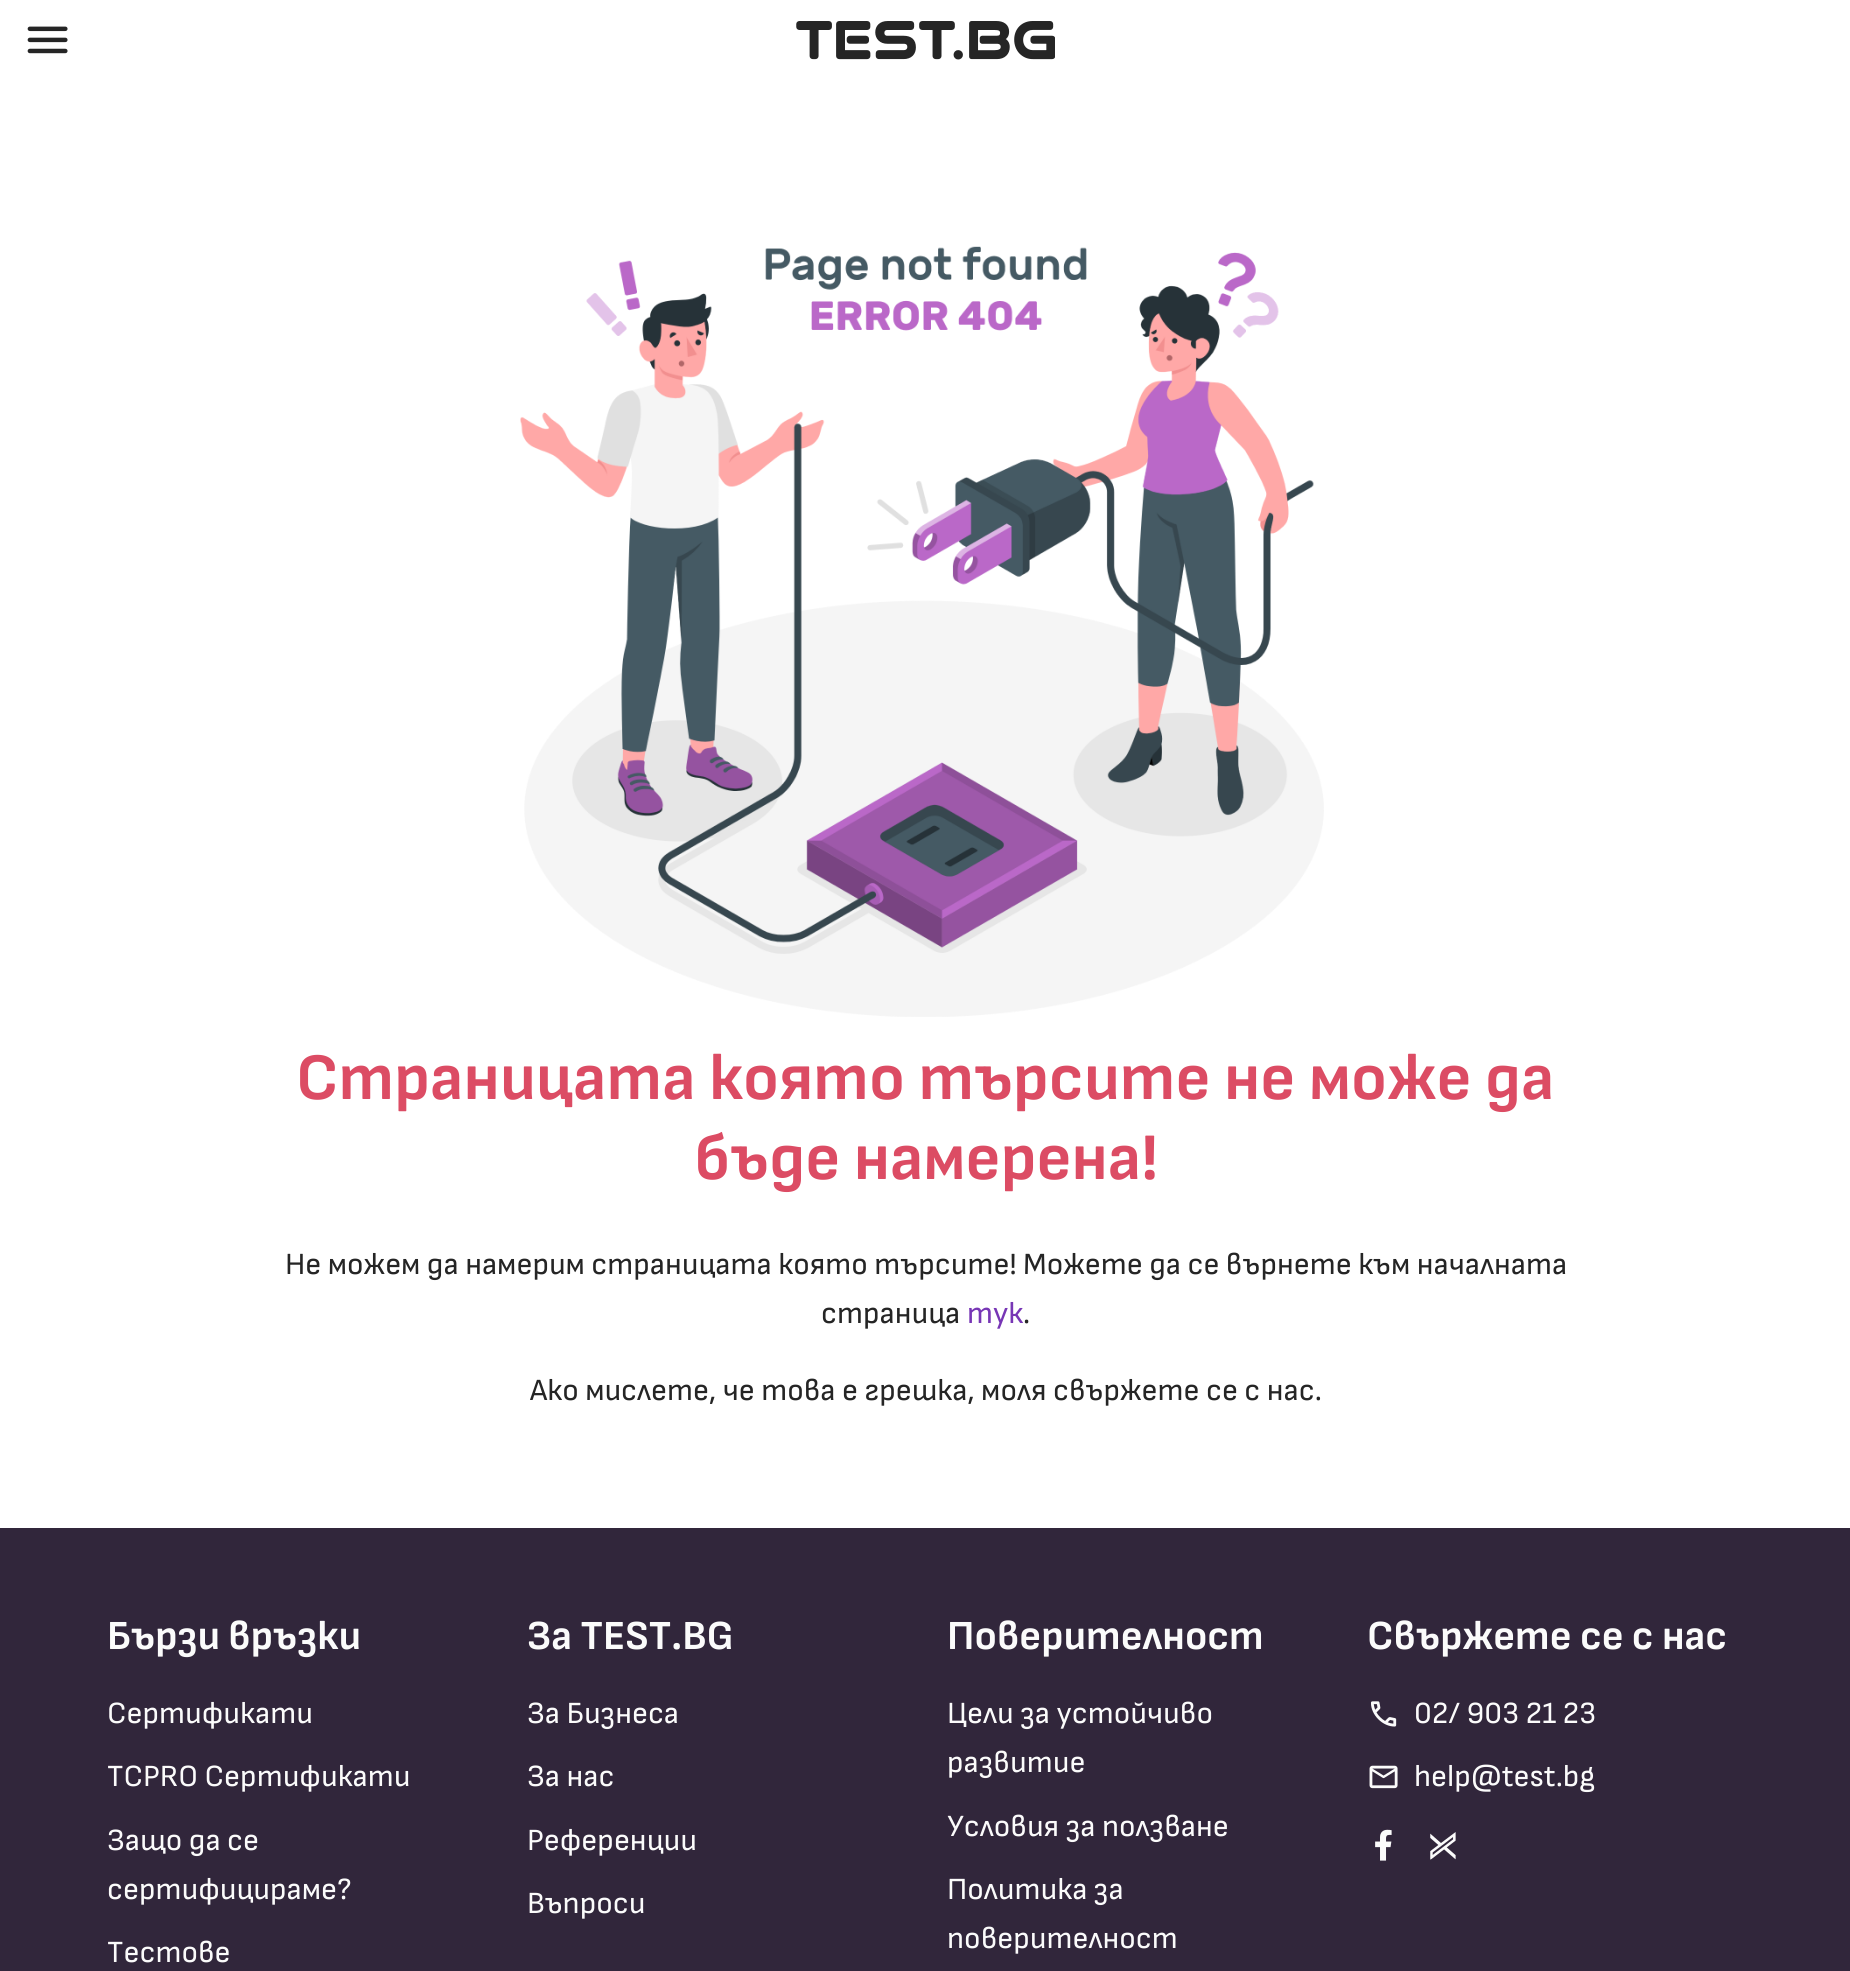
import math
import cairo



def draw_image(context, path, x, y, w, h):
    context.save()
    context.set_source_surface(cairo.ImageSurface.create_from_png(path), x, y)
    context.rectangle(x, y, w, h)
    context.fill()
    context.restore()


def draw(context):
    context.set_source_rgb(1, 1, 1)
    context.paint()
    draw_image(context, "images/1.png", 27, 26, 41, 28)
    draw_image(context, "images/2.png", 796, 21, 259, 39)
    draw_image(context, "images/3.png", 520, 246, 804, 771)
    context.set_source_rgb(49 / 255, 38 / 255, 59 / 255)
    context.rectangle(0, 1528, 1850, 443)
    context.fill()
    draw_image(context, "images/4.png", 1371, 1701, 26, 26)
    draw_image(context, "images/5.png", 1369, 1765, 29, 24)
    draw_image(context, "images/6.png", 1375, 1829, 17, 32)
    draw_image(context, "images/7.png", 1430, 1832, 26, 28)
    context.select_font_face("Sofia Sans", cairo.FontSlant.NORMAL, cairo.FontWeight.BOLD)
    context.set_font_size(66.25)
    context.set_source_rgb(220 / 255, 76 / 255, 100 / 255)
    context.move_to(296, 1099)
    context.show_text("Страницата която търсите не може да")
    context.move_to(694, 1179)
    context.show_text("бъде намерена!")
    context.select_font_face("Sofia Sans")
    context.set_font_size(30.8)
    context.set_source_rgb(37 / 255, 37 / 255, 37 / 255)
    context.move_to(285, 1274)
    context.show_text("Не можем да намерим страницата която търсите! Можете да се върнете към началната")
    context.move_to(821, 1323)
    context.show_text("страница")
    context.set_source_rgb(119 / 255, 54 / 255, 181 / 255)
    context.move_to(967, 1323)
    context.show_text("тук")
    context.set_source_rgb(37 / 255, 37 / 255, 37 / 255)
    context.move_to(1023, 1323)
    context.show_text(".")
    context.move_to(530, 1400)
    context.show_text("Ако мислете, че това е грешка, моля свържете се с нас.")
    context.select_font_face("Sofia Sans", cairo.FontSlant.NORMAL, cairo.FontWeight.BOLD)
    context.set_font_size(41.25)
    context.set_source_rgb(251 / 255, 251 / 255, 251 / 255)
    context.move_to(107, 1649)
    context.show_text("Бързи връзки")
    context.select_font_face("Sofia Sans")
    context.set_font_size(30.8)
    context.move_to(107, 1723)
    context.show_text("Сертификати")
    context.move_to(107, 1786)
    context.show_text("TCPRO Сертификати")
    context.move_to(107, 1850)
    context.show_text("Защо да се")
    context.move_to(107, 1899)
    context.show_text("сертифицираме?")
    context.move_to(107, 1962)
    context.show_text("Тестове")
    context.select_font_face("Sofia Sans", cairo.FontSlant.NORMAL, cairo.FontWeight.BOLD)
    context.set_font_size(41.25)
    context.move_to(527, 1649)
    context.show_text("За TEST.BG")
    context.select_font_face("Sofia Sans")
    context.set_font_size(30.8)
    context.move_to(527, 1723)
    context.show_text("За Бизнеса")
    context.move_to(527, 1786)
    context.show_text("За нас")
    context.move_to(527, 1850)
    context.show_text("Референции")
    context.move_to(527, 1913)
    context.show_text("Въпроси")
    context.select_font_face("Sofia Sans", cairo.FontSlant.NORMAL, cairo.FontWeight.BOLD)
    context.set_font_size(41.25)
    context.move_to(947, 1649)
    context.show_text("Поверителност")
    context.select_font_face("Sofia Sans")
    context.set_font_size(30.8)
    context.move_to(947, 1723)
    context.show_text("Цели за устойчиво")
    context.move_to(947, 1772)
    context.show_text("развитие")
    context.move_to(947, 1836)
    context.show_text("Условия за ползване")
    context.move_to(947, 1899)
    context.show_text("Политика за")
    context.move_to(947, 1948)
    context.show_text("поверителност")
    context.select_font_face("Sofia Sans", cairo.FontSlant.NORMAL, cairo.FontWeight.BOLD)
    context.set_font_size(41.25)
    context.move_to(1367, 1649)
    context.show_text("Свържете се с нас")
    context.select_font_face("Sofia Sans")
    context.set_font_size(30.8)
    context.move_to(1414, 1723)
    context.show_text("02/ 903 21 23")
    context.move_to(1414, 1786)
    context.show_text("help@test.bg")


surface = cairo.ImageSurface(cairo.Format.RGB24, 1850, 1971)
context = cairo.Context(surface)
options = cairo.FontOptions()
options.set_hint_metrics(cairo.HintMetrics.OFF)
options.set_hint_style(cairo.HintStyle.NONE)
context.set_font_options(options)
context.set_miter_limit(4)
draw(context)
surface.write_to_png("out.png")
